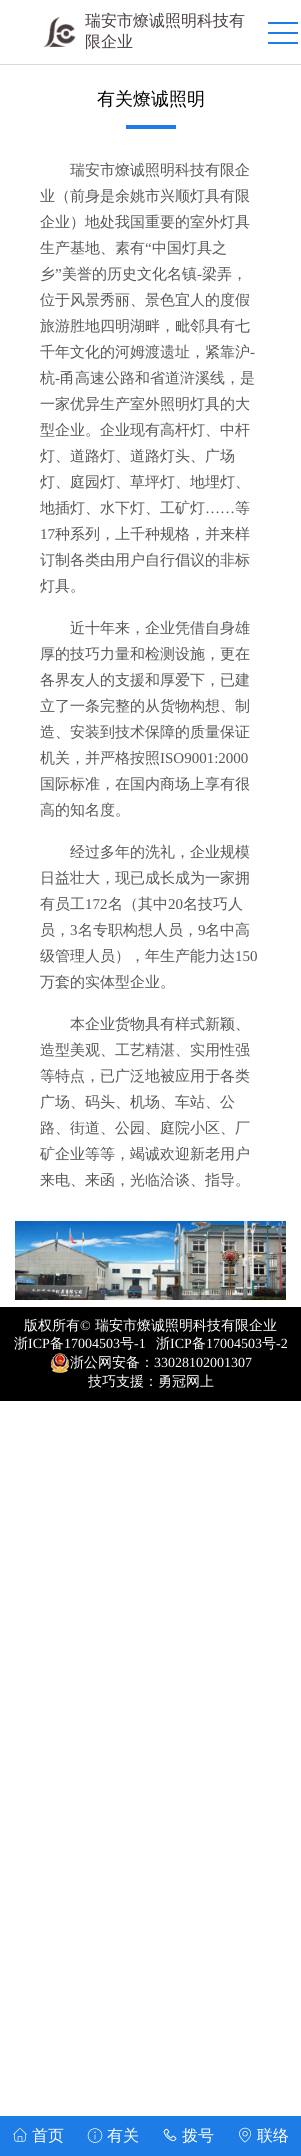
import math
import cairo



def draw_image(context, path, x, y, w, h):
    context.save()
    context.set_source_surface(cairo.ImageSurface.create_from_png(path), x, y)
    context.rectangle(x, y, w, h)
    context.fill()
    context.restore()


def draw(context):
    context.set_source_rgb(1, 1, 1)
    context.paint()
    context.set_source_rgb(217 / 255, 217 / 255, 217 / 255)
    context.rectangle(0, 64, 301, 1)
    context.fill()
    draw_image(context, "images/1.png", 43, 17, 33, 30)
    context.set_source_rgb(29 / 255, 124 / 255, 230 / 255)
    context.rectangle(268, 22, 30, 2)
    context.fill()
    context.rectangle(268, 32, 30, 2)
    context.fill()
    context.rectangle(268, 42, 30, 2)
    context.fill()
    context.rectangle(126, 125, 50, 4)
    context.fill()
    draw_image(context, "images/2.png", 15, 1221, 271, 79)
    context.set_source_rgb(0, 0, 0)
    context.rectangle(0, 1307, 301, 94)
    context.fill()
    draw_image(context, "images/3.png", 51, 1353, 18, 20)
    context.set_source_rgb(29 / 255, 124 / 255, 230 / 255)
    context.rectangle(0, 2116, 301, 40)
    context.fill()
    draw_image(context, "images/4.png", 13, 2128, 14, 14)
    draw_image(context, "images/5.png", 87, 2128, 16, 15)
    draw_image(context, "images/6.png", 163, 2128, 14, 14)
    draw_image(context, "images/7.png", 239, 2127, 12, 16)
    context.select_font_face("WenQuanYi Zen Hei Medium")
    context.set_font_size(16)
    context.set_source_rgb(73 / 255, 63 / 255, 63 / 255)
    context.move_to(85, 26)
    context.show_text("瑞安市燎诚照明科技有")
    context.move_to(85, 47)
    context.show_text("限企业")
    context.set_font_size(18)
    context.set_source_rgb(0, 0, 0)
    context.move_to(97, 105)
    context.show_text("有关燎诚照明")
    context.set_font_size(15)
    context.set_source_rgb(87 / 255, 87 / 255, 87 / 255)
    context.move_to(70, 175)
    context.show_text("瑞安市燎诚照明科技有限企")
    context.move_to(40, 201)
    context.show_text("业（前身是余姚市兴顺灯具有限")
    context.move_to(40, 227)
    context.show_text("企业）地处我国重要的室外灯具")
    context.move_to(40, 253)
    context.show_text("生产基地、素有")
    context.select_font_face("Liberation Serif")
    context.move_to(145, 253)
    context.show_text("“")
    context.select_font_face("WenQuanYi Zen Hei Medium")
    context.move_to(152, 253)
    context.show_text("中国灯具之")
    context.move_to(40, 279)
    context.show_text("乡")
    context.select_font_face("Liberation Serif")
    context.move_to(55, 279)
    context.show_text("”")
    context.select_font_face("WenQuanYi Zen Hei Medium")
    context.move_to(62, 279)
    context.show_text("美誉的历史文化名镇")
    context.move_to(202, 279)
    context.show_text("梁弄，")
    context.select_font_face("Liberation Serif")
    context.move_to(197, 279)
    context.show_text("-")
    context.select_font_face("WenQuanYi Zen Hei Medium")
    context.move_to(40, 305)
    context.show_text("位于风景秀丽、景色宜人的度假")
    context.move_to(40, 331)
    context.show_text("旅游胜地四明湖畔，毗邻具有七")
    context.move_to(40, 357)
    context.show_text("千年文化的河姆渡遗址，紧靠沪")
    context.select_font_face("Liberation Serif")
    context.move_to(250, 357)
    context.show_text("-")
    context.select_font_face("WenQuanYi Zen Hei Medium")
    context.move_to(40, 383)
    context.show_text("杭")
    context.select_font_face("Liberation Serif")
    context.move_to(55, 383)
    context.show_text("-")
    context.select_font_face("WenQuanYi Zen Hei Medium")
    context.move_to(60, 383)
    context.show_text("甬高速公路和省道浒溪线，是")
    context.move_to(40, 409)
    context.show_text("一家优异生产室外照明灯具的大")
    context.move_to(40, 435)
    context.show_text("型企业。企业现有高杆灯、中杆")
    context.move_to(40, 461)
    context.show_text("灯、道路灯、道路灯头、广场")
    context.move_to(40, 487)
    context.show_text("灯、庭园灯、草坪灯、地埋灯、")
    context.move_to(40, 513)
    context.show_text("地插灯、水下灯、工矿灯")
    context.select_font_face("Liberation Serif")
    context.move_to(205, 513)
    context.show_text("……")
    context.select_font_face("WenQuanYi Zen Hei Medium")
    context.move_to(235, 513)
    context.show_text("等")
    context.select_font_face("Liberation Serif")
    context.move_to(40, 539)
    context.show_text("17")
    context.select_font_face("WenQuanYi Zen Hei Medium")
    context.move_to(55, 539)
    context.show_text("种系列，上千种规格，并来样")
    context.move_to(40, 565)
    context.show_text("订制各类由用户自行倡议的非标")
    context.move_to(40, 591)
    context.show_text("灯具。")
    context.move_to(70, 633)
    context.show_text("近十年来，企业凭借自身雄")
    context.move_to(40, 659)
    context.show_text("厚的技巧力量和检测设施，更在")
    context.move_to(40, 685)
    context.show_text("各界友人的支援和厚爱下，已建")
    context.move_to(40, 711)
    context.show_text("立了一条完整的从货物构想、制")
    context.move_to(40, 737)
    context.show_text("造、安装到技术保障的质量保证")
    context.move_to(40, 763)
    context.show_text("机关，并严格按照")
    context.select_font_face("Liberation Serif")
    context.move_to(160, 763)
    context.show_text("ISO9001:2000")
    context.select_font_face("WenQuanYi Zen Hei Medium")
    context.move_to(40, 789)
    context.show_text("国际标准，在国内商场上享有很")
    context.move_to(40, 815)
    context.show_text("高的知名度。")
    context.move_to(70, 857)
    context.show_text("经过多年的洗礼，企业规模")
    context.move_to(40, 883)
    context.show_text("日益壮大，现已成长成为一家拥")
    context.move_to(40, 909)
    context.show_text("有员工")
    context.select_font_face("Liberation Serif")
    context.move_to(85, 909)
    context.show_text("172")
    context.select_font_face("WenQuanYi Zen Hei Medium")
    context.move_to(108, 909)
    context.show_text("名（其中")
    context.select_font_face("Liberation Serif")
    context.move_to(168, 909)
    context.show_text("20")
    context.select_font_face("WenQuanYi Zen Hei Medium")
    context.move_to(183, 909)
    context.show_text("名技巧人")
    context.move_to(40, 935)
    context.show_text("员，")
    context.select_font_face("Liberation Serif")
    context.move_to(70, 935)
    context.show_text("3")
    context.select_font_face("WenQuanYi Zen Hei Medium")
    context.move_to(78, 935)
    context.show_text("名专职构想人员，")
    context.select_font_face("Liberation Serif")
    context.move_to(198, 935)
    context.show_text("9")
    context.select_font_face("WenQuanYi Zen Hei Medium")
    context.move_to(205, 935)
    context.show_text("名中高")
    context.move_to(40, 961)
    context.show_text("级管理人员），年生产能力达")
    context.select_font_face("Liberation Serif")
    context.move_to(235, 961)
    context.show_text("150")
    context.select_font_face("WenQuanYi Zen Hei Medium")
    context.move_to(40, 987)
    context.show_text("万套的实体型企业。")
    context.move_to(70, 1029)
    context.show_text("本企业货物具有样式新颖、")
    context.move_to(40, 1055)
    context.show_text("造型美观、工艺精湛、实用性强")
    context.move_to(40, 1081)
    context.show_text("等特点，已广泛地被应用于各类")
    context.move_to(40, 1107)
    context.show_text("广场、码头、机场、车站、公")
    context.move_to(40, 1133)
    context.show_text("路、街道、公园、庭院小区、厂")
    context.move_to(40, 1159)
    context.show_text("矿企业等等，竭诚欢迎新老用户")
    context.move_to(40, 1185)
    context.show_text("来电、来函，光临洽谈、指导。")
    context.set_font_size(14)
    context.set_source_rgb(1, 1, 1)
    context.move_to(24, 1330)
    context.show_text("版权所有")
    context.select_font_face("Liberation Serif")
    context.move_to(80, 1330)
    context.show_text("©")
    context.select_font_face("WenQuanYi Zen Hei Medium")
    context.move_to(95, 1330)
    context.show_text("瑞安市燎诚照明科技有限企业")
    context.move_to(14, 1348)
    context.show_text("浙")
    context.select_font_face("Liberation Serif")
    context.move_to(28, 1348)
    context.show_text("ICP")
    context.select_font_face("WenQuanYi Zen Hei Medium")
    context.move_to(50, 1348)
    context.show_text("备")
    context.select_font_face("Liberation Serif")
    context.move_to(64, 1348)
    context.show_text("17004503")
    context.select_font_face("WenQuanYi Zen Hei Medium")
    context.move_to(120, 1348)
    context.show_text("号")
    context.select_font_face("Liberation Serif")
    context.move_to(134, 1348)
    context.show_text("-1")
    context.select_font_face("WenQuanYi Zen Hei Medium")
    context.move_to(156, 1348)
    context.show_text("浙")
    context.select_font_face("Liberation Serif")
    context.move_to(170, 1348)
    context.show_text("ICP")
    context.select_font_face("WenQuanYi Zen Hei Medium")
    context.move_to(192, 1348)
    context.show_text("备")
    context.select_font_face("Liberation Serif")
    context.move_to(206, 1348)
    context.show_text("17004503")
    context.select_font_face("WenQuanYi Zen Hei Medium")
    context.move_to(262, 1348)
    context.show_text("号")
    context.select_font_face("Liberation Serif")
    context.move_to(276, 1348)
    context.show_text("-2")
    context.select_font_face("WenQuanYi Zen Hei Medium")
    context.move_to(70, 1367)
    context.show_text("浙公网安备：")
    context.select_font_face("Liberation Serif")
    context.move_to(154, 1367)
    context.show_text("33028102001307")
    context.select_font_face("WenQuanYi Zen Hei Medium")
    context.move_to(88, 1386)
    context.show_text("技巧支援：勇冠网上")
    context.set_font_size(16)
    context.move_to(32, 2141)
    context.show_text("首页")
    context.move_to(107, 2141)
    context.show_text("有关")
    context.move_to(182, 2141)
    context.show_text("拨号")
    context.move_to(257, 2141)
    context.show_text("联络")


surface = cairo.ImageSurface(cairo.Format.RGB24, 301, 2156)
context = cairo.Context(surface)
options = cairo.FontOptions()
options.set_hint_metrics(cairo.HintMetrics.OFF)
options.set_hint_style(cairo.HintStyle.NONE)
context.set_font_options(options)
context.set_miter_limit(4)
draw(context)
surface.write_to_png("out.png")
